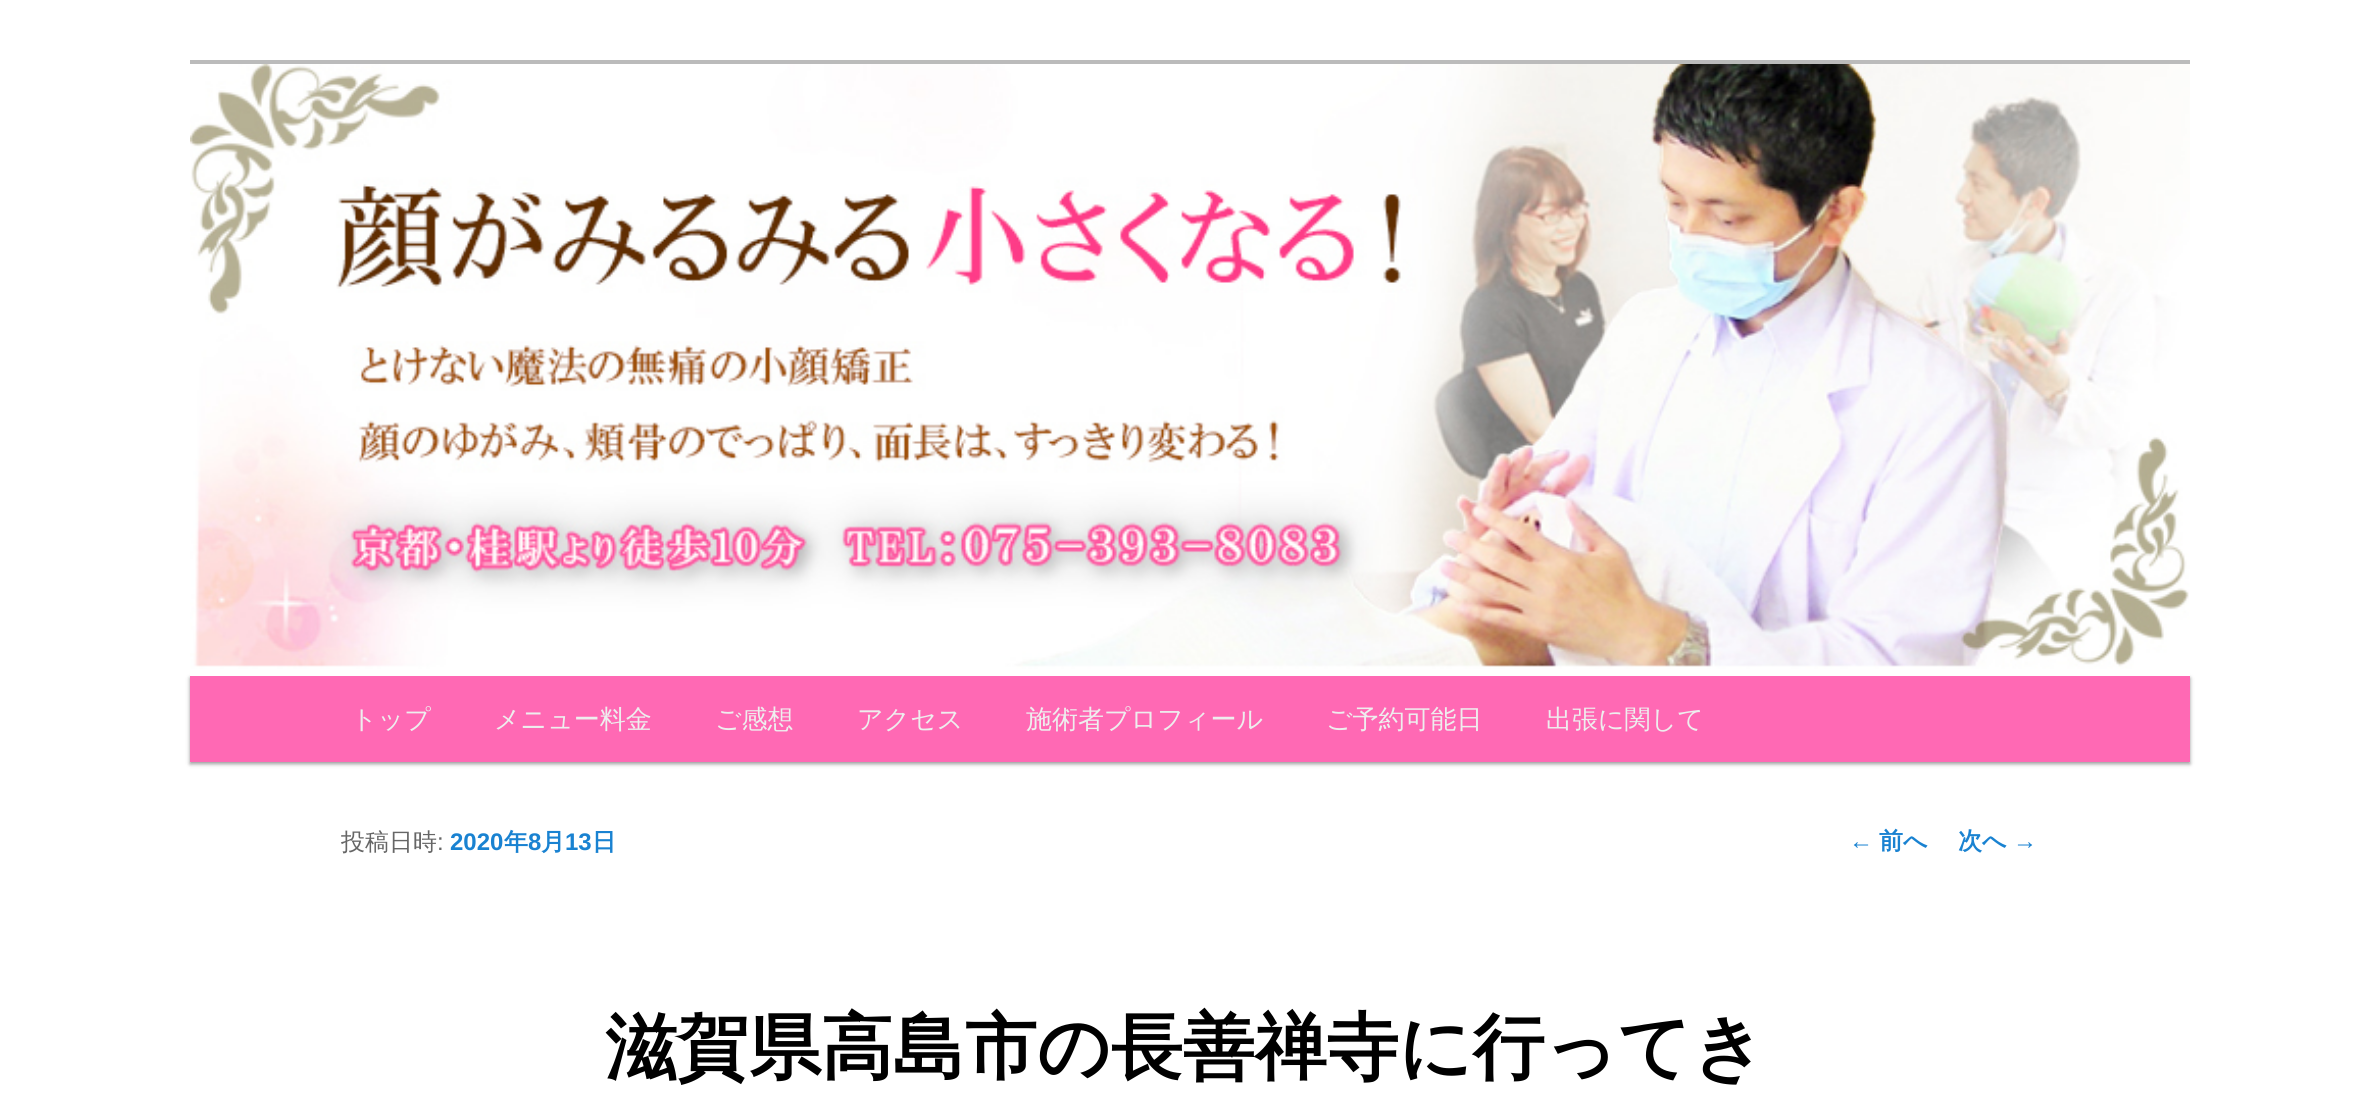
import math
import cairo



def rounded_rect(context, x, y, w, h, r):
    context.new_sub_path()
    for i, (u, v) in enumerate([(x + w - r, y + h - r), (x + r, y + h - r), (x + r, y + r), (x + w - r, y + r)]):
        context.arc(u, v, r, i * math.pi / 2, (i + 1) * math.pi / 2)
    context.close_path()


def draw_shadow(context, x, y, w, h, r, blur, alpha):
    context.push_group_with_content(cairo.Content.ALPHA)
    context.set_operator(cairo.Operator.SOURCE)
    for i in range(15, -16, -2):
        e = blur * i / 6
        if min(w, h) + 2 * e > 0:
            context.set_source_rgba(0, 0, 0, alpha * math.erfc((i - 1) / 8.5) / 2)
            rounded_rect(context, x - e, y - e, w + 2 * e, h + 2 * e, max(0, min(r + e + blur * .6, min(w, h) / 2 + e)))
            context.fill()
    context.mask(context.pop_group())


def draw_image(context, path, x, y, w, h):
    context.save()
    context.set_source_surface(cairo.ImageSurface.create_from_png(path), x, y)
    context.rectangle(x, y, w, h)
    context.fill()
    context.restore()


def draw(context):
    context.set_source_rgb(1, 1, 1)
    context.paint()
    context.set_source_rgb(187 / 255, 187 / 255, 187 / 255)
    context.rectangle(190, 60, 2000, 4)
    context.fill()
    context.set_source_rgb(0, 0, 0)
    draw_shadow(context, 190, 678, 2000, 86, 0, 2, 0.4)
    draw_image(context, "images/1.png", 190, 64, 2000, 612)
    context.set_source_rgb(1, 105 / 255, 180 / 255)
    context.rectangle(190, 676, 2000, 86)
    context.fill()
    context.select_font_face("WenQuanYi Zen Hei Medium")
    context.set_font_size(26)
    context.set_source_rgb(238 / 255, 238 / 255, 238 / 255)
    context.move_to(351, 728)
    context.show_text("トップ")
    context.move_to(494, 728)
    context.show_text("メニュー料金")
    context.move_to(715, 728)
    context.show_text("ご感想")
    context.move_to(857, 728)
    context.show_text("アクセス")
    context.move_to(1026, 728)
    context.show_text("施術者プロフィール")
    context.move_to(1326, 728)
    context.show_text("ご予約可能日")
    context.move_to(1546, 728)
    context.show_text("出張に関して")
    context.set_font_size(24)
    context.set_source_rgb(102 / 255, 102 / 255, 102 / 255)
    context.move_to(341, 850)
    context.show_text("投稿日時")
    context.select_font_face("Liberation Sans")
    context.move_to(437, 850)
    context.show_text(":")
    context.select_font_face("Liberation Sans", cairo.FontSlant.NORMAL, cairo.FontWeight.BOLD)
    context.set_source_rgb(25 / 255, 130 / 255, 209 / 255)
    context.move_to(450, 850)
    context.show_text("2020")
    context.select_font_face("WenQuanYi Zen Hei", cairo.FontSlant.NORMAL, cairo.FontWeight.BOLD)
    context.move_to(504, 850)
    context.show_text("年")
    context.select_font_face("Liberation Sans", cairo.FontSlant.NORMAL, cairo.FontWeight.BOLD)
    context.move_to(528, 850)
    context.show_text("8")
    context.select_font_face("WenQuanYi Zen Hei", cairo.FontSlant.NORMAL, cairo.FontWeight.BOLD)
    context.move_to(541, 850)
    context.show_text("月")
    context.select_font_face("Liberation Sans", cairo.FontSlant.NORMAL, cairo.FontWeight.BOLD)
    context.move_to(565, 850)
    context.show_text("13")
    context.select_font_face("WenQuanYi Zen Hei", cairo.FontSlant.NORMAL, cairo.FontWeight.BOLD)
    context.move_to(592, 850)
    context.show_text("日")
    context.set_font_size(72)
    context.set_source_rgb(0, 0, 0)
    context.move_to(605, 1072)
    context.show_text("滋賀県高島市の長善禅寺に行ってき")
    context.select_font_face("Liberation Sans")
    context.set_font_size(24)
    context.set_source_rgb(25 / 255, 130 / 255, 209 / 255)
    context.move_to(1849, 849)
    context.show_text("←")
    context.select_font_face("WenQuanYi Zen Hei", cairo.FontSlant.NORMAL, cairo.FontWeight.BOLD)
    context.move_to(1879, 849)
    context.show_text("前へ")
    context.move_to(1958, 849)
    context.show_text("次へ")
    context.select_font_face("Liberation Sans")
    context.move_to(2013, 849)
    context.show_text("→")


surface = cairo.ImageSurface(cairo.Format.RGB24, 2377, 1095)
context = cairo.Context(surface)
options = cairo.FontOptions()
options.set_hint_metrics(cairo.HintMetrics.OFF)
options.set_hint_style(cairo.HintStyle.NONE)
context.set_font_options(options)
context.set_miter_limit(4)
draw(context)
surface.write_to_png("out.png")
